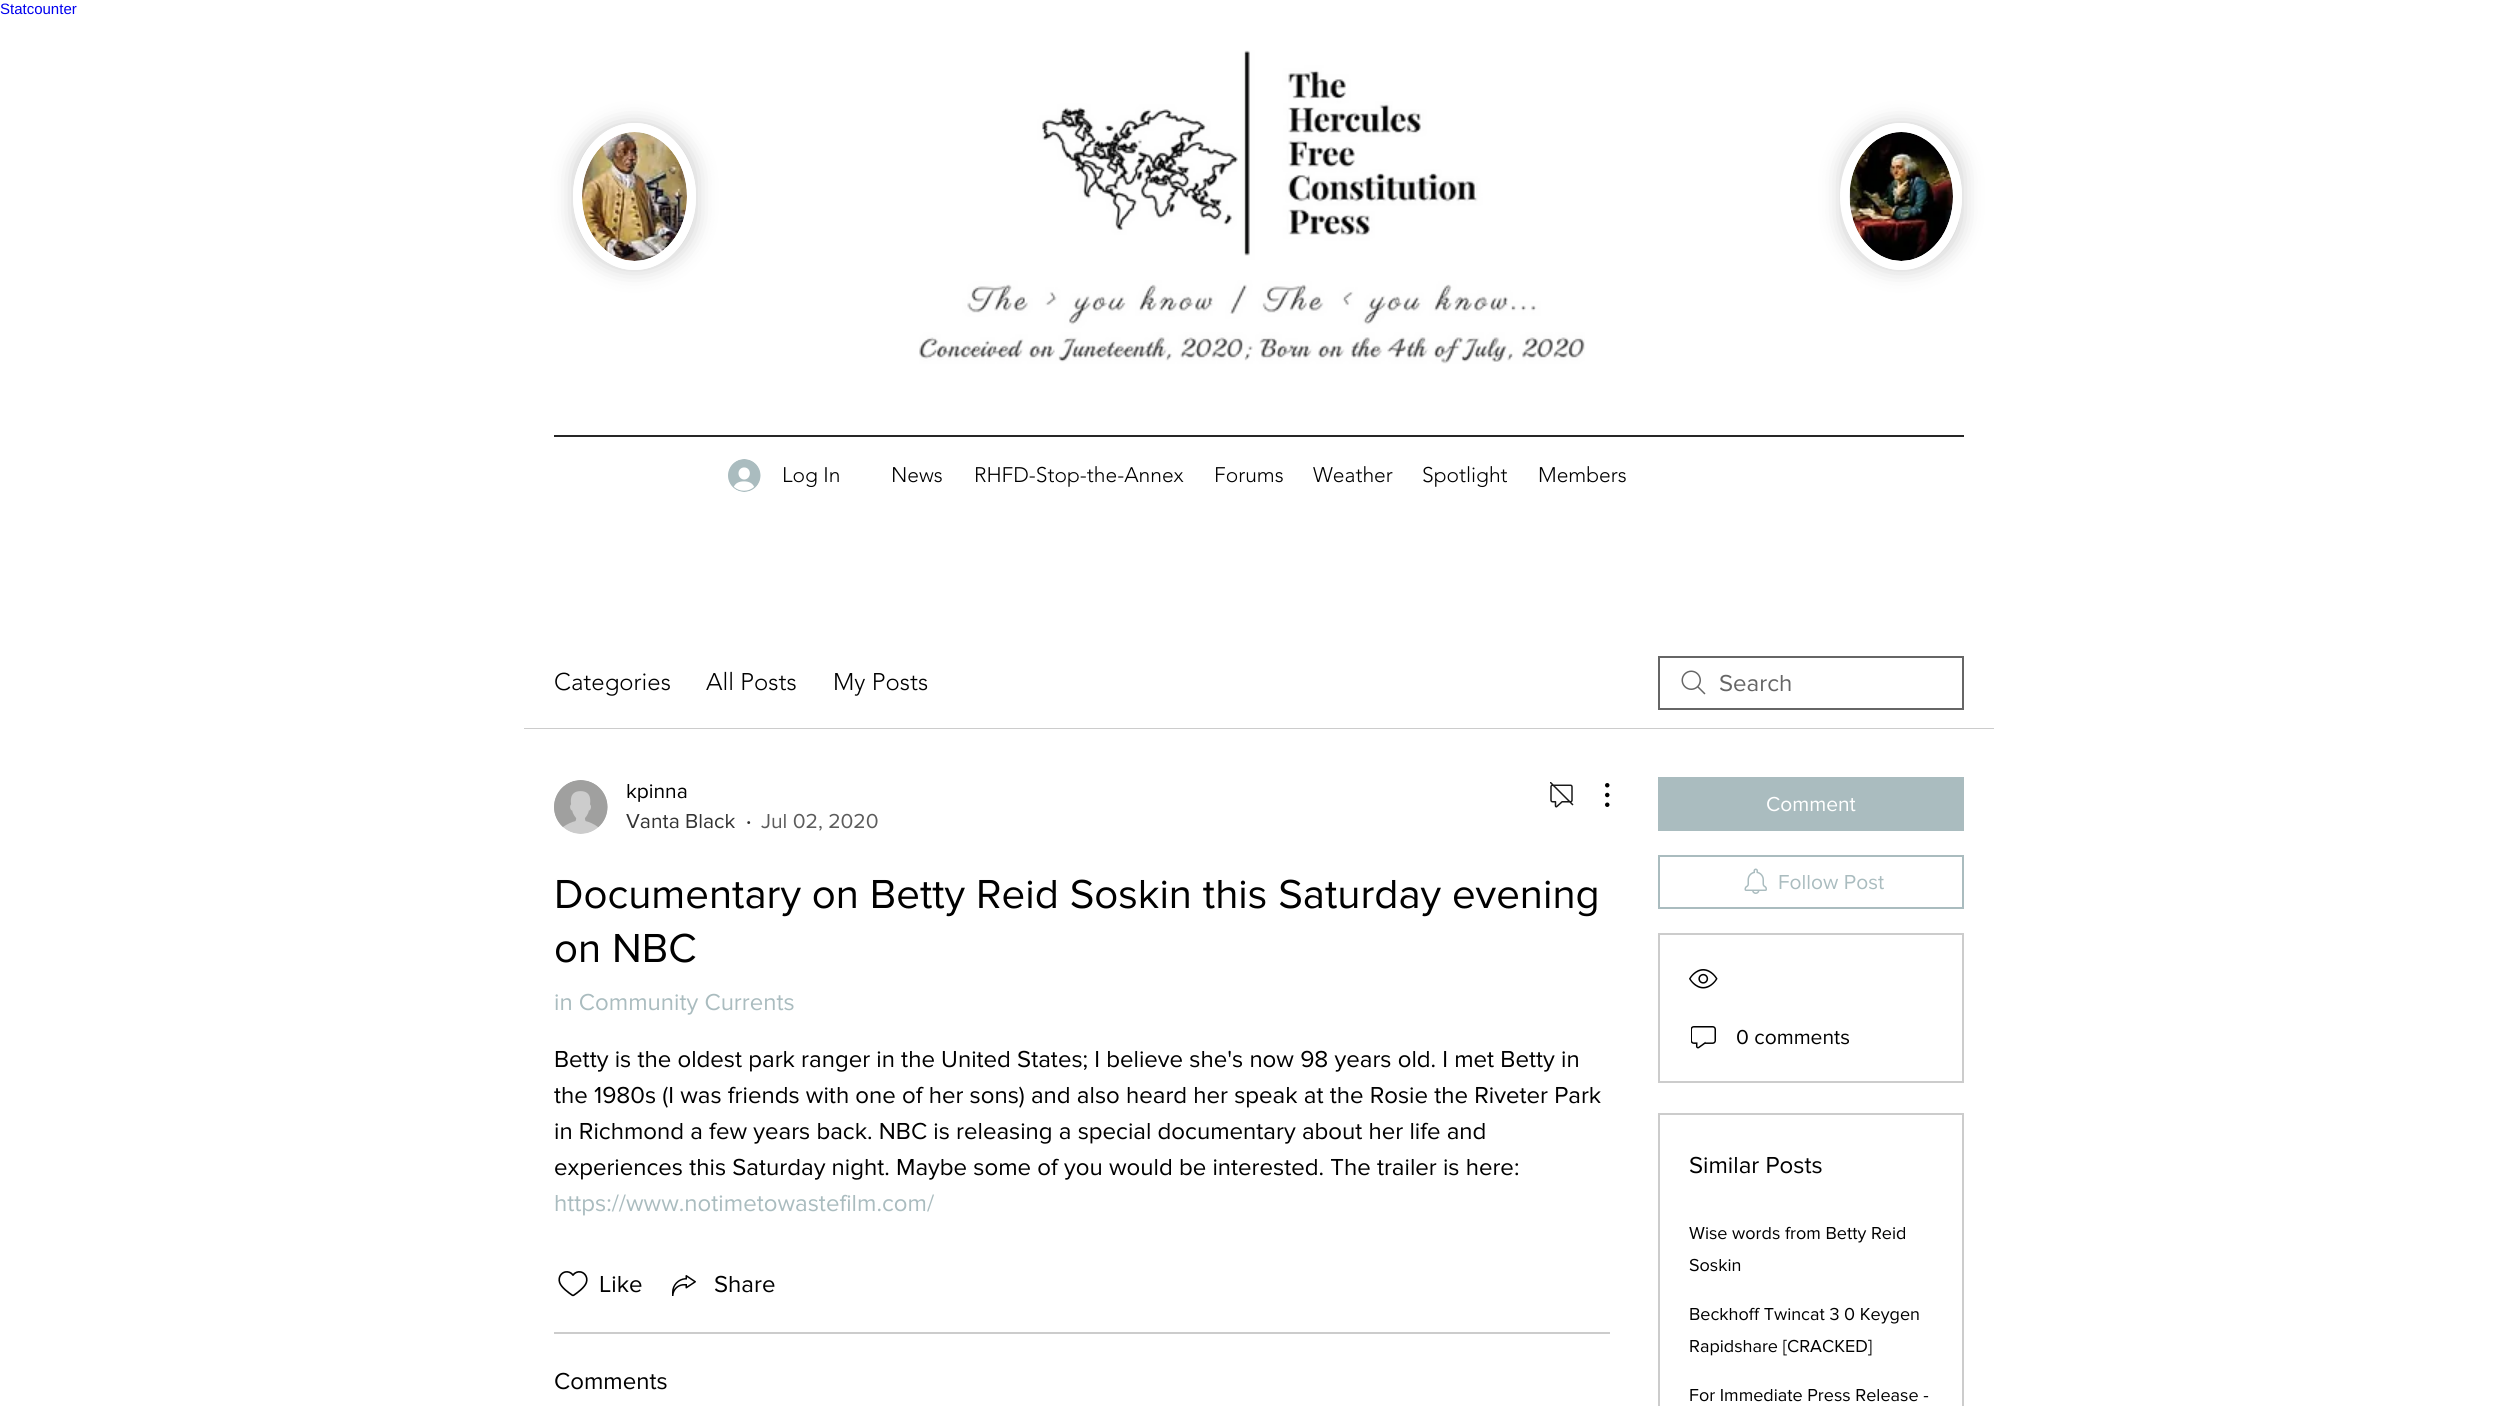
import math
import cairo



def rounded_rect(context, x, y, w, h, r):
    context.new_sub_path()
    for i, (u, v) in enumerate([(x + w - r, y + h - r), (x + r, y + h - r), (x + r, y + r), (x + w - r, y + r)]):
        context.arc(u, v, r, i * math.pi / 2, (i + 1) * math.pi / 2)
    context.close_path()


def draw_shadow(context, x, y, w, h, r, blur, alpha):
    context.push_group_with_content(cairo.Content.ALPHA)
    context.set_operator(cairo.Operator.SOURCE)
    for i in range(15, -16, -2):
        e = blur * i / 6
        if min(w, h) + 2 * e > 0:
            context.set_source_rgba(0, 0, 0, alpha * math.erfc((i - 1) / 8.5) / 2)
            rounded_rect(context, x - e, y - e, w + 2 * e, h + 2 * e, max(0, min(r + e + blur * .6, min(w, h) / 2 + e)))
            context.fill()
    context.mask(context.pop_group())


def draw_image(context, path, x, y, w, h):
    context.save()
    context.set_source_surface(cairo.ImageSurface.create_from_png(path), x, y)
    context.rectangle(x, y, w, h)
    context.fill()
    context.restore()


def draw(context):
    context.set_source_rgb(1, 1, 1)
    context.paint()
    context.set_source_rgb(0, 0, 0)
    draw_shadow(context, 573, 123, 123, 147, 61.5, 10.5, 0.2)
    context.set_source_rgb(1, 1, 1)
    context.new_path()
    context.move_to(634.5, 123)
    context.curve_to(668.5, 123, 696, 156, 696, 196.5)
    context.curve_to(696, 237, 668.5, 270, 634.5, 270)
    context.curve_to(600.5, 270, 573, 237, 573, 196.5)
    context.curve_to(573, 156, 600.5, 123, 634.5, 123)
    context.close_path()
    context.fill()
    context.new_path()
    context.move_to(634.5, 127.5)
    context.curve_to(666, 127.5, 691.5, 158.5, 691.5, 196.5)
    context.curve_to(691.5, 234.5, 666, 265.5, 634.5, 265.5)
    context.curve_to(603, 265.5, 577.5, 234.5, 577.5, 196.5)
    context.curve_to(577.5, 158.5, 603, 127.5, 634.5, 127.5)
    context.close_path()
    context.set_line_width(9)
    context.stroke()
    draw_image(context, "images/1.png", 582, 132, 105, 129)
    draw_image(context, "images/2.png", 919, 50, 666, 314)
    context.set_source_rgb(0, 0, 0)
    draw_shadow(context, 1841, 123, 121, 147, 60.5, 10.5, 0.2)
    context.set_source_rgb(1, 1, 1)
    context.new_path()
    context.move_to(1901, 123)
    context.curve_to(1934.5, 123, 1962, 156, 1962, 196.5)
    context.curve_to(1962, 237, 1934.5, 270, 1901, 270)
    context.curve_to(1867.5, 270, 1840, 237, 1840, 196.5)
    context.curve_to(1840, 156, 1867.5, 123, 1901, 123)
    context.close_path()
    context.fill()
    context.new_path()
    context.move_to(1901, 127.5)
    context.curve_to(1932.5, 127.5, 1957.5, 158.5, 1957.5, 196.5)
    context.curve_to(1957.5, 234.5, 1932.5, 265.5, 1901, 265.5)
    context.curve_to(1870, 265.5, 1845, 234.5, 1845, 196.5)
    context.curve_to(1845, 158.5, 1870, 127.5, 1901, 127.5)
    context.close_path()
    context.stroke()
    draw_image(context, "images/3.png", 1849, 132, 104, 129)
    context.set_source_rgb(38 / 255, 38 / 255, 38 / 255)
    context.rectangle(554, 435, 1410, 2)
    context.fill()
    draw_image(context, "images/4.png", 728, 459, 33, 33)
    context.set_source_rgb(204 / 255, 204 / 255, 204 / 255)
    context.rectangle(524, 728, 1470, 1)
    context.fill()
    draw_image(context, "images/5.png", 1681, 670, 25, 25)
    context.rectangle(1659, 657, 304, 52)
    context.set_source_rgb(102 / 255, 102 / 255, 102 / 255)
    context.set_line_width(2)
    context.stroke()
    draw_image(context, "images/6.png", 554, 780, 54, 54)
    draw_image(context, "images/7.png", 1550, 782, 24, 26)
    draw_image(context, "images/8.png", 1605, 783, 5, 24)
    draw_image(context, "images/9.png", 558, 1271, 30, 26)
    draw_image(context, "images/10.png", 672, 1275, 24, 21)
    context.set_source_rgb(204 / 255, 204 / 255, 204 / 255)
    context.rectangle(554, 1332, 1056, 2)
    context.fill()
    context.set_source_rgb(170 / 255, 188 / 255, 191 / 255)
    context.rectangle(1658, 777, 306, 54)
    context.fill()
    context.rectangle(1659, 856, 304, 52)
    context.stroke()
    draw_image(context, "images/11.png", 1744, 868, 23, 26)
    context.rectangle(1659, 934, 304, 148)
    context.set_source_rgb(204 / 255, 204 / 255, 204 / 255)
    context.stroke()
    draw_image(context, "images/12.png", 1689, 969, 29, 20)
    draw_image(context, "images/13.png", 1691, 1026, 25, 23)
    context.rectangle(1659, 1114, 304, 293)
    context.stroke()
    context.select_font_face("Liberation Sans")
    context.set_font_size(15)
    context.set_source_rgb(0, 0, 238 / 255)
    context.move_to(0, 14)
    context.show_text("Statcounter")
    context.select_font_face("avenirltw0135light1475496 Light")
    context.set_font_size(21)
    context.set_source_rgb(0, 0, 0)
    context.move_to(782, 482)
    context.show_text("Log In")
    context.move_to(891, 482)
    context.show_text("News")
    context.move_to(974, 482)
    context.show_text("RHFD-Stop-the-Annex")
    context.move_to(1214, 482)
    context.show_text("Forums")
    context.move_to(1313, 482)
    context.show_text("Weather")
    context.move_to(1422, 482)
    context.show_text("Spotlight")
    context.move_to(1538, 482)
    context.show_text("Members")
    context.set_font_size(24)
    context.move_to(554, 690)
    context.show_text("Categories")
    context.move_to(706, 690)
    context.show_text("All Posts")
    context.move_to(833, 690)
    context.show_text("My Posts")
    context.select_font_face("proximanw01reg")
    context.set_source_rgb(102 / 255, 102 / 255, 102 / 255)
    context.move_to(1719, 691)
    context.show_text("Search")
    context.set_font_size(21)
    context.set_source_rgb(0, 0, 0)
    context.move_to(626, 798)
    context.show_text("kpinna")
    context.set_source_rgb(51 / 255, 51 / 255, 51 / 255)
    context.move_to(626, 828)
    context.show_text("Vanta Black")
    context.select_font_face("proximanw01reg", cairo.FontSlant.NORMAL, cairo.FontWeight.BOLD)
    context.move_to(746, 828)
    context.show_text("·")
    context.select_font_face("proximanw01reg")
    context.set_source_rgb(92 / 255, 92 / 255, 92 / 255)
    context.move_to(761, 828)
    context.show_text("Jul 02, 2020")
    context.set_font_size(42)
    context.set_source_rgb(0, 0, 0)
    context.move_to(554, 908)
    context.show_text("Documentary on Betty Reid Soskin this Saturday evening")
    context.move_to(554, 962)
    context.show_text("on NBC")
    context.set_font_size(24)
    context.set_source_rgb(170 / 255, 188 / 255, 191 / 255)
    context.move_to(554, 1010)
    context.show_text("in Community Currents")
    context.set_source_rgb(0, 0, 0)
    context.move_to(554, 1067)
    context.show_text("Betty is the oldest park ranger in the United States; I believe she's now 98 years old. I met Betty in")
    context.move_to(554, 1103)
    context.show_text("the 1980s (I was friends with one of her sons) and also heard her speak at the Rosie the Riveter Park")
    context.move_to(554, 1139)
    context.show_text("in Richmond a few years back. NBC is releasing a special documentary about her life and")
    context.move_to(554, 1175)
    context.show_text("experiences this Saturday night. Maybe some of you would be interested. The trailer is here:")
    context.set_source_rgb(170 / 255, 188 / 255, 191 / 255)
    context.move_to(554, 1211)
    context.show_text("https://www.notimetowastefilm.com/")
    context.set_source_rgb(0, 0, 0)
    context.move_to(599, 1292)
    context.show_text("Like")
    context.move_to(714, 1292)
    context.show_text("Share")
    context.move_to(554, 1389)
    context.show_text("Comments")
    context.set_font_size(21)
    context.set_source_rgb(1, 1, 1)
    context.move_to(1766, 811)
    context.show_text("Comment")
    context.set_source_rgb(170 / 255, 188 / 255, 191 / 255)
    context.move_to(1778, 889)
    context.show_text("Follow Post")
    context.set_source_rgb(0, 0, 0)
    context.move_to(1736, 1044)
    context.show_text("0 comments")
    context.set_font_size(24)
    context.move_to(1689, 1173)
    context.show_text("Similar Posts")
    context.set_font_size(18)
    context.move_to(1689, 1239)
    context.show_text("Wise words from Betty Reid")
    context.move_to(1689, 1271)
    context.show_text("Soskin")
    context.move_to(1689, 1320)
    context.show_text("Beckhoff Twincat 3 0 Keygen")
    context.move_to(1689, 1352)
    context.show_text("Rapidshare [CRACKED]")
    context.move_to(1689, 1401)
    context.show_text("For Immediate Press Release -")


surface = cairo.ImageSurface(cairo.Format.RGB24, 2516, 1406)
context = cairo.Context(surface)
options = cairo.FontOptions()
options.set_hint_metrics(cairo.HintMetrics.OFF)
options.set_hint_style(cairo.HintStyle.NONE)
context.set_font_options(options)
context.set_miter_limit(4)
draw(context)
surface.write_to_png("out.png")
